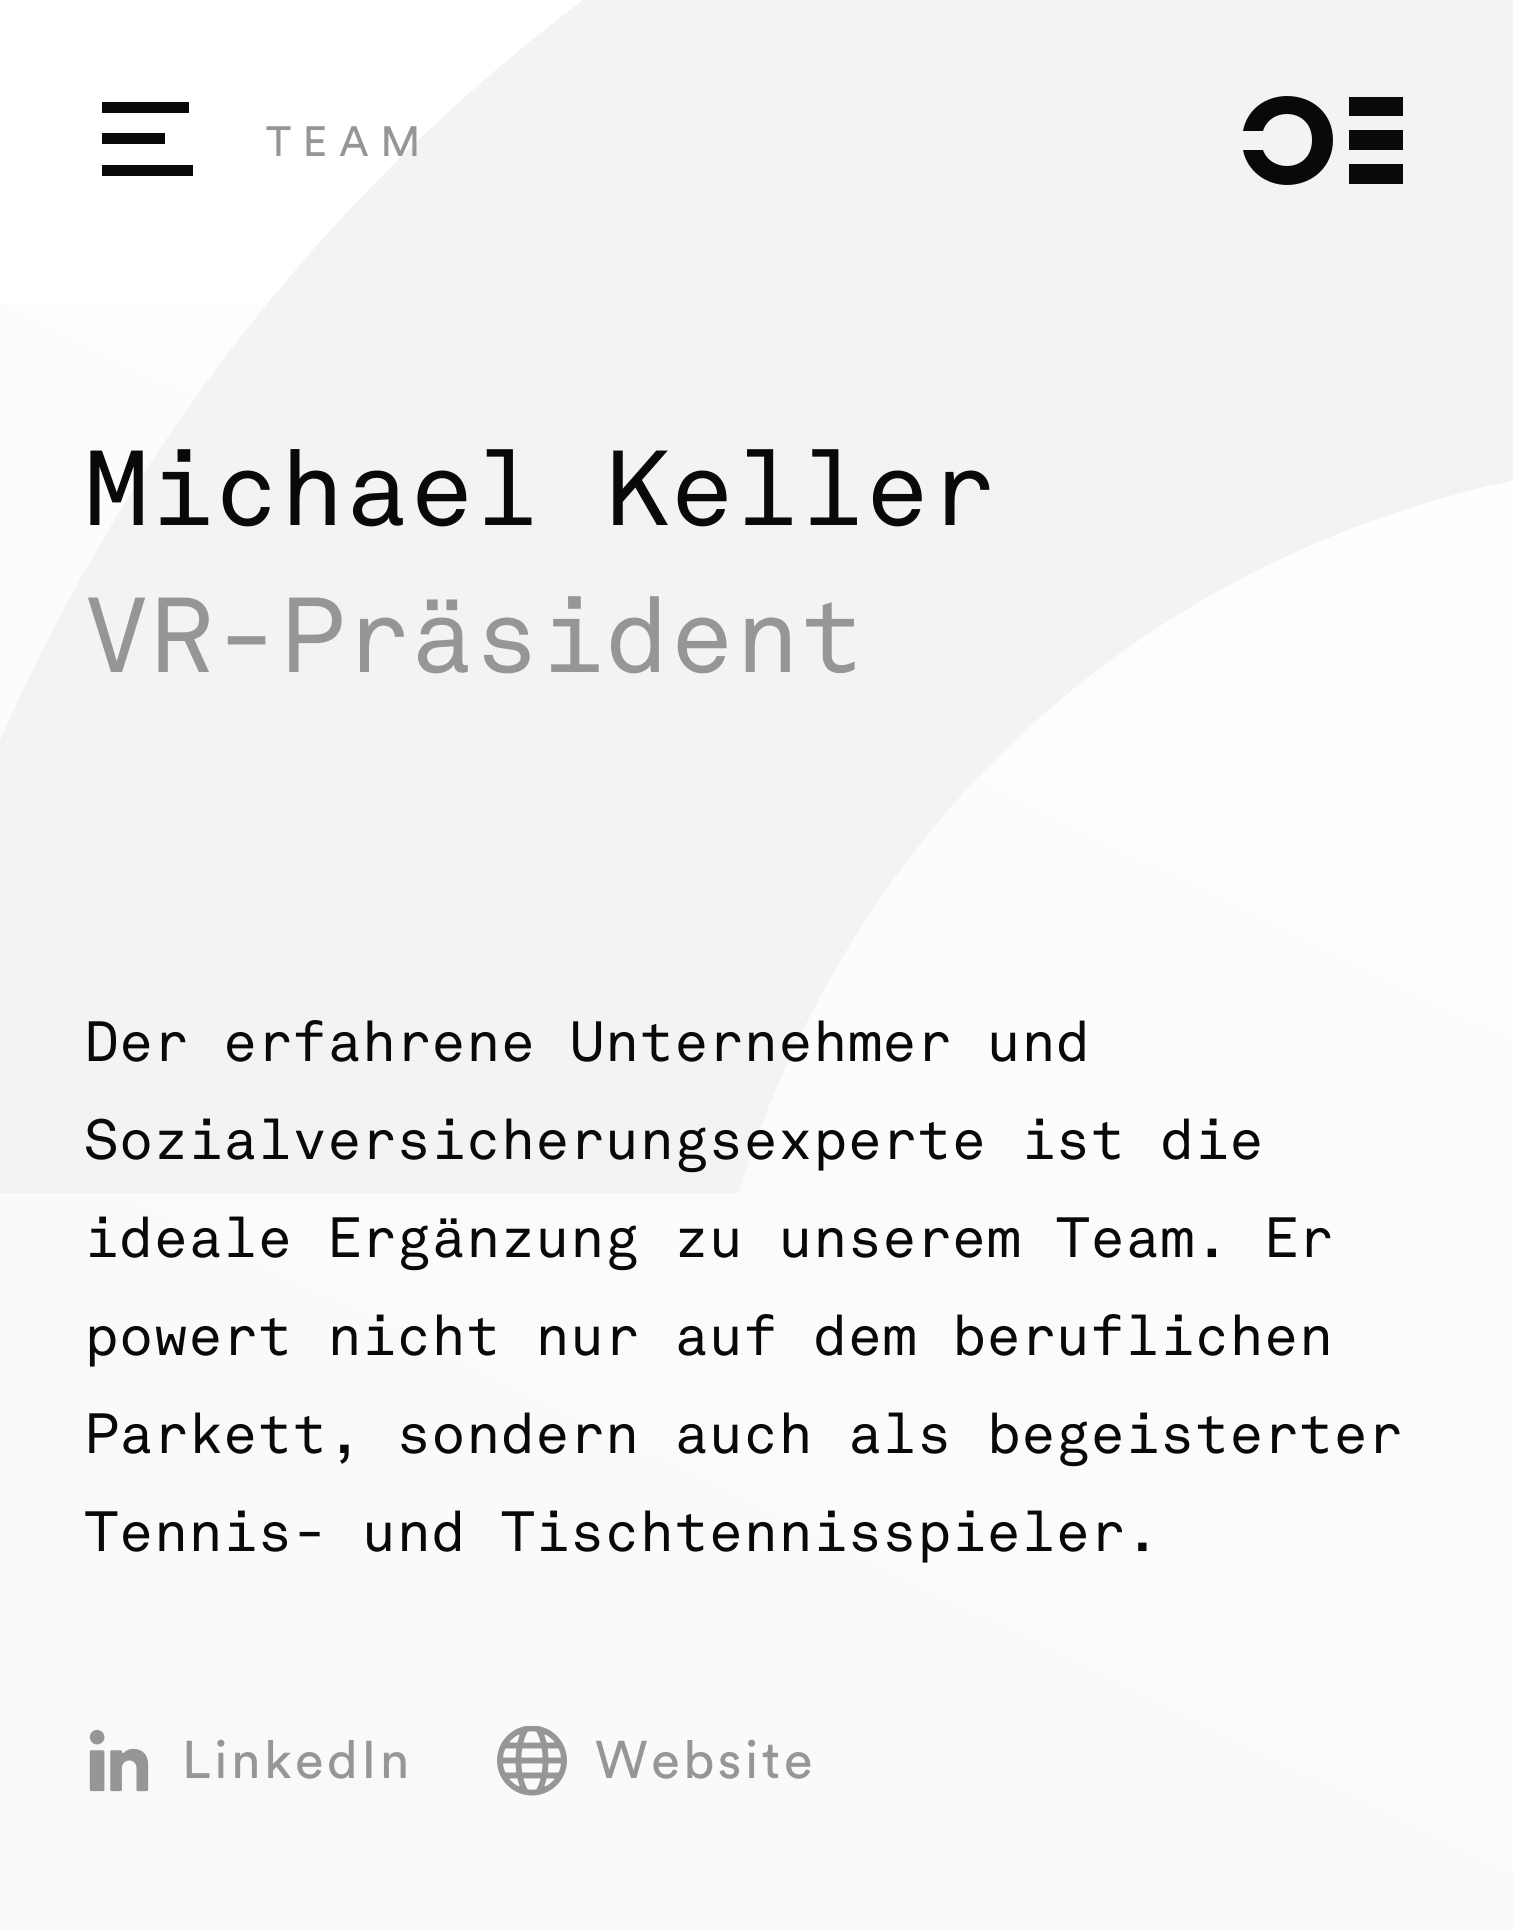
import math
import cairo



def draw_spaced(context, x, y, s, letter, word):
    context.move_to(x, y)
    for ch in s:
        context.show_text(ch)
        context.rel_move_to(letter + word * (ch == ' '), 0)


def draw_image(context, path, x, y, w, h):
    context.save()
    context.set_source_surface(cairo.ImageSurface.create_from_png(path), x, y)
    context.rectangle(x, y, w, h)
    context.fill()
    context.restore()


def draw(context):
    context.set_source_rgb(1, 1, 1)
    context.paint()
    gradient = cairo.LinearGradient(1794, 136, -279, 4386)
    gradient.add_color_stop_rgba(0, 1, 1, 1, 1)
    gradient.add_color_stop_rgba(0.95, 243 / 255, 243 / 255, 243 / 255, 1)
    context.set_source(gradient)
    context.rectangle(0, 302, 1513, 1628)
    context.fill()
    context.set_source_rgb(243 / 255, 243 / 255, 243 / 255)
    context.set_fill_rule(cairo.FillRule.EVEN_ODD)
    context.new_path()
    context.move_to(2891, 0)
    context.line_to(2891, 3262)
    context.curve_to(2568, 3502, 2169, 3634, 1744, 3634)
    context.curve_to(831, 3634, 41, 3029, -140, 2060)
    context.line_to(740, 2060)
    context.curve_to(900, 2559, 1333, 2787, 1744, 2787)
    context.curve_to(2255, 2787, 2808, 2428, 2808, 1624)
    context.curve_to(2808, 820, 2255, 456, 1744, 456)
    context.curve_to(1332, 456, 896, 689, 738, 1193)
    context.line_to(-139, 1193)
    context.curve_to(-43, 682, 221, 273, 583, 0)
    context.close_path()
    context.fill()
    context.set_source_rgb(9 / 255, 9 / 255, 9 / 255)
    context.rectangle(102, 102, 87, 11)
    context.fill()
    context.rectangle(102, 133, 63, 11)
    context.fill()
    context.rectangle(102, 165, 91, 11)
    context.fill()
    context.new_path()
    context.move_to(1287, 96)
    context.curve_to(1266, 96, 1247, 109, 1243, 131)
    context.line_to(1263, 131)
    context.curve_to(1267, 119, 1277, 114, 1287, 114)
    context.curve_to(1299, 114, 1312, 122, 1312, 140)
    context.curve_to(1312, 158, 1299, 166, 1287, 166)
    context.curve_to(1277, 166, 1267, 161, 1263, 150)
    context.line_to(1243, 150)
    context.curve_to(1247, 171, 1266, 185, 1287, 185)
    context.curve_to(1312, 185, 1333, 167, 1333, 140)
    context.curve_to(1333, 113, 1312, 96, 1287, 96)
    context.fill()
    context.rectangle(1349, 97, 54, 19)
    context.fill()
    context.rectangle(1349, 164, 54, 20)
    context.fill()
    context.rectangle(1349, 130, 54, 20)
    context.fill()
    draw_image(context, "images/1.png", 89, 1729, 60, 63)
    draw_image(context, "images/2.png", 497, 1726, 70, 70)
    context.select_font_face("Circular")
    context.set_font_size(42)
    context.set_source_rgb(150 / 255, 150 / 255, 150 / 255)
    draw_spaced(context, 266, 156, "TEAM", 12, 0)
    context.select_font_face("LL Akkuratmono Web")
    context.set_font_size(105)
    context.set_source_rgb(9 / 255, 9 / 255, 9 / 255)
    context.move_to(84, 525)
    context.show_text("Michael Keller")
    context.set_source_rgb(150 / 255, 150 / 255, 150 / 255)
    context.move_to(84, 672)
    context.show_text("VR-Präsident")
    context.set_font_size(56)
    context.set_source_rgb(9 / 255, 9 / 255, 9 / 255)
    context.move_to(84, 1061)
    context.show_text("Der erfahrene Unternehmer und")
    context.move_to(84, 1159)
    context.show_text("Sozialversicherungsexperte ist die")
    context.move_to(84, 1257)
    context.show_text("ideale Ergänzung zu unserem Team. Er")
    context.move_to(84, 1355)
    context.show_text("powert nicht nur auf dem beruflichen")
    context.move_to(84, 1453)
    context.show_text("Parkett, sondern auch als begeisterter")
    context.move_to(84, 1551)
    context.show_text("Tennis- und Tischtennisspieler.")
    context.select_font_face("Circular")
    context.set_font_size(52.5)
    context.set_source_rgb(150 / 255, 150 / 255, 150 / 255)
    draw_spaced(context, 182, 1778, "LinkedIn", 3.5, 0)
    draw_spaced(context, 595, 1778, "Website", 3.5, 0)


surface = cairo.ImageSurface(cairo.Format.RGB24, 1513, 1930)
context = cairo.Context(surface)
options = cairo.FontOptions()
options.set_hint_metrics(cairo.HintMetrics.OFF)
options.set_hint_style(cairo.HintStyle.NONE)
context.set_font_options(options)
context.set_miter_limit(4)
draw(context)
surface.write_to_png("out.png")
